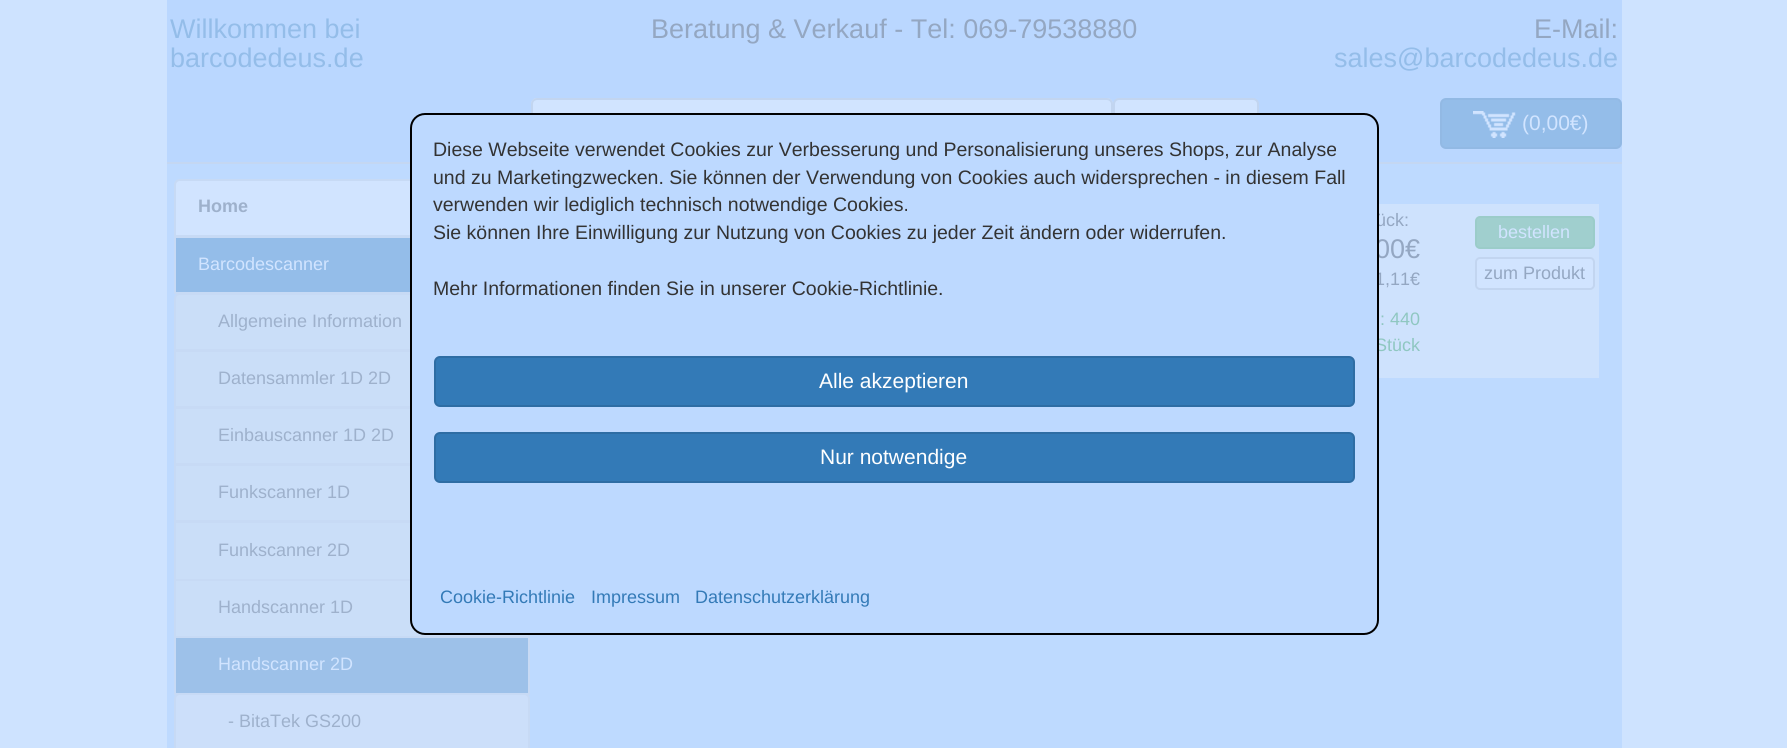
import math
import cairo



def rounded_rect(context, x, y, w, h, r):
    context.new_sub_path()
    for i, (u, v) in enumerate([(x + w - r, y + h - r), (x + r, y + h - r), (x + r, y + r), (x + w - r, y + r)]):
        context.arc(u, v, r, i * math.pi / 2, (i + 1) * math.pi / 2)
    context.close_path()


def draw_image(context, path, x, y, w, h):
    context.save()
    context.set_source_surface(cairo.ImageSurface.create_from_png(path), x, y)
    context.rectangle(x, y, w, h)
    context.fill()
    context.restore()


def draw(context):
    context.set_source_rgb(206 / 255, 227 / 255, 1)
    context.paint()
    context.set_source_rgb(190 / 255, 218 / 255, 1)
    context.rectangle(167, 164, 1455, 584)
    context.fill()
    context.set_source_rgb(186 / 255, 215 / 255, 1)
    context.rectangle(167, 0, 1455, 162)
    context.fill()
    context.set_source_rgb(196 / 255, 215 / 255, 242 / 255)
    context.rectangle(167, 162, 1455, 2)
    context.fill()
    context.set_source_rgb(209 / 255, 228 / 255, 1)
    rounded_rect(context, 531, 98, 582, 51, 6)
    context.fill()
    context.set_source_rgb(203 / 255, 223 / 255, 249 / 255)
    context.new_path()
    context.move_to(537, 100)
    context.line_to(1107, 100)
    context.curve_to(1109, 100, 1112, 103, 1112, 105)
    context.line_to(1112, 104)
    context.curve_to(1112, 101, 1110, 99, 1107, 99)
    context.line_to(538, 99)
    context.curve_to(536, 99, 534, 100, 533, 102)
    context.curve_to(534, 101, 536, 100, 537, 100)
    context.close_path()
    context.fill()
    rounded_rect(context, 532, 99, 580, 49, 5)
    context.set_source_rgb(194 / 255, 213 / 255, 240 / 255)
    context.stroke()
    context.set_source_rgb(209 / 255, 228 / 255, 1)
    rounded_rect(context, 1114, 99, 144, 49, 5)
    context.fill_preserve()
    context.set_source_rgb(194 / 255, 213 / 255, 240 / 255)
    context.stroke()
    context.set_source_rgb(148 / 255, 189 / 255, 233 / 255)
    rounded_rect(context, 1441, 99, 180, 49, 5)
    context.fill_preserve()
    context.set_source_rgb(146 / 255, 185 / 255, 228 / 255)
    context.stroke()
    draw_image(context, "images/1.png", 1473, 111, 43, 27)
    context.set_source_rgb(209 / 255, 228 / 255, 1)
    context.new_path()
    context.move_to(180, 180)
    context.line_to(524, 180)
    context.curve_to(527, 180, 529, 182, 529, 185)
    context.line_to(529, 236)
    context.line_to(175, 236)
    context.line_to(175, 185)
    context.curve_to(175, 182, 177, 180, 180, 180)
    context.close_path()
    context.fill_preserve()
    context.set_source_rgb(199 / 255, 218 / 255, 245 / 255)
    context.stroke()
    context.set_source_rgb(148 / 255, 189 / 255, 233 / 255)
    context.rectangle(176, 238, 234, 54)
    context.fill()
    context.rectangle(175, 237, 354, 56)
    context.set_source_rgb(199 / 255, 218 / 255, 245 / 255)
    context.stroke()
    context.set_source_rgb(202 / 255, 222 / 255, 248 / 255)
    context.new_path()
    context.move_to(180, 294)
    context.line_to(524, 294)
    context.curve_to(527, 294, 529, 296, 529, 299)
    context.line_to(529, 350)
    context.line_to(175, 350)
    context.line_to(175, 299)
    context.curve_to(175, 296, 177, 294, 180, 294)
    context.close_path()
    context.fill_preserve()
    context.set_source_rgb(199 / 255, 218 / 255, 245 / 255)
    context.stroke()
    context.set_source_rgb(202 / 255, 222 / 255, 248 / 255)
    context.rectangle(176, 352, 234, 54)
    context.fill()
    context.rectangle(175, 351, 354, 56)
    context.set_source_rgb(199 / 255, 218 / 255, 245 / 255)
    context.stroke()
    context.set_source_rgb(202 / 255, 222 / 255, 248 / 255)
    context.rectangle(176, 409, 234, 54)
    context.fill()
    context.rectangle(175, 408, 354, 56)
    context.set_source_rgb(199 / 255, 218 / 255, 245 / 255)
    context.stroke()
    context.set_source_rgb(202 / 255, 222 / 255, 248 / 255)
    context.rectangle(176, 466, 234, 54)
    context.fill()
    context.rectangle(175, 465, 354, 56)
    context.set_source_rgb(199 / 255, 218 / 255, 245 / 255)
    context.stroke()
    context.set_source_rgb(202 / 255, 222 / 255, 248 / 255)
    context.rectangle(176, 523, 234, 56)
    context.fill()
    context.rectangle(175, 522, 354, 58)
    context.set_source_rgb(199 / 255, 218 / 255, 245 / 255)
    context.stroke()
    context.set_source_rgb(202 / 255, 222 / 255, 248 / 255)
    context.rectangle(175, 580, 354, 57)
    context.fill_preserve()
    context.set_source_rgb(199 / 255, 218 / 255, 245 / 255)
    context.stroke()
    context.set_source_rgb(157 / 255, 193 / 255, 233 / 255)
    context.rectangle(175, 637, 354, 57)
    context.fill_preserve()
    context.set_source_rgb(199 / 255, 218 / 255, 245 / 255)
    context.stroke()
    context.set_source_rgb(204 / 255, 223 / 255, 250 / 255)
    context.new_path()
    context.move_to(180, 694)
    context.line_to(524, 694)
    context.curve_to(527, 694, 529, 696, 529, 699)
    context.line_to(529, 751)
    context.line_to(175, 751)
    context.line_to(175, 699)
    context.curve_to(175, 696, 177, 694, 180, 694)
    context.close_path()
    context.fill_preserve()
    context.set_source_rgb(199 / 255, 218 / 255, 245 / 255)
    context.stroke()
    context.set_source_rgb(206 / 255, 226 / 255, 253 / 255)
    context.rectangle(1379, 204, 220, 174)
    context.fill()
    context.set_source_rgb(160 / 255, 207 / 255, 206 / 255)
    rounded_rect(context, 1476, 217, 118, 31, 4)
    context.fill_preserve()
    context.set_source_rgb(155 / 255, 204 / 255, 201 / 255)
    context.stroke()
    context.set_source_rgb(209 / 255, 228 / 255, 1)
    rounded_rect(context, 1476, 258, 118, 31, 4)
    context.fill_preserve()
    context.set_source_rgb(194 / 255, 213 / 255, 240 / 255)
    context.stroke()
    context.select_font_face("Liberation Sans")
    context.set_font_size(27)
    context.set_source_rgb(148 / 255, 189 / 255, 233 / 255)
    context.move_to(170, 38)
    context.show_text("Willkommen bei")
    context.move_to(170, 67)
    context.show_text("barcodedeus.de")
    context.set_source_rgb(148 / 255, 167 / 255, 194 / 255)
    context.move_to(651, 38)
    context.show_text("Beratung & Verkauf - Tel: 069-79538880")
    context.move_to(1534, 38)
    context.show_text("E-Mail:")
    context.set_source_rgb(148 / 255, 189 / 255, 233 / 255)
    context.move_to(1334, 67)
    context.show_text("sales@barcodedeus.de")
    context.set_font_size(21)
    context.set_source_rgb(209 / 255, 228 / 255, 1)
    context.move_to(1522, 130)
    context.show_text("(0,00€)")
    context.select_font_face("Liberation Sans", cairo.FontSlant.NORMAL, cairo.FontWeight.BOLD)
    context.set_font_size(18)
    context.set_source_rgb(158 / 255, 177 / 255, 204 / 255)
    context.move_to(198, 212)
    context.show_text("Home")
    context.select_font_face("Liberation Sans")
    context.set_source_rgb(209 / 255, 228 / 255, 1)
    context.move_to(198, 270)
    context.show_text("Barcodescanner")
    context.set_source_rgb(158 / 255, 177 / 255, 204 / 255)
    context.move_to(218, 327)
    context.show_text("Allgemeine Information")
    context.move_to(218, 384)
    context.show_text("Datensammler 1D 2D")
    context.move_to(218, 441)
    context.show_text("Einbauscanner 1D 2D")
    context.move_to(218, 498)
    context.show_text("Funkscanner 1D")
    context.move_to(218, 556)
    context.show_text("Funkscanner 2D")
    context.move_to(218, 613)
    context.show_text("Handscanner 1D")
    context.set_source_rgb(209 / 255, 228 / 255, 1)
    context.move_to(218, 670)
    context.show_text("Handscanner 2D")
    context.set_source_rgb(158 / 255, 177 / 255, 204 / 255)
    context.move_to(228, 727)
    context.show_text("- BitaTek GS200")
    context.set_source_rgb(148 / 255, 167 / 255, 194 / 255)
    context.move_to(1376, 226)
    context.show_text("ück:")
    context.set_font_size(27)
    context.move_to(1375, 258)
    context.show_text("00€")
    context.set_font_size(18)
    context.move_to(1375, 285)
    context.show_text("1,11€")
    context.set_source_rgb(143 / 255, 199 / 255, 193 / 255)
    context.move_to(1380, 325)
    context.show_text(": 440")
    context.move_to(1375, 351)
    context.show_text("Stück")
    context.set_source_rgb(189 / 255, 217 / 255, 1)
    rounded_rect(context, 411, 114, 967, 520, 14)
    context.fill_preserve()
    context.set_source_rgb(0, 0, 0)
    context.stroke()
    context.set_source_rgb(51 / 255, 122 / 255, 183 / 255)
    rounded_rect(context, 435, 433, 919, 49, 5)
    context.fill_preserve()
    context.set_source_rgb(46 / 255, 109 / 255, 164 / 255)
    context.stroke()
    context.set_font_size(21)
    context.set_source_rgb(1, 1, 1)
    context.move_to(820, 464)
    context.show_text("Nur notwendige")
    context.set_source_rgb(51 / 255, 122 / 255, 183 / 255)
    rounded_rect(context, 435, 357, 919, 49, 5)
    context.fill_preserve()
    context.set_source_rgb(46 / 255, 109 / 255, 164 / 255)
    context.stroke()
    context.set_source_rgb(1, 1, 1)
    context.move_to(819, 388)
    context.show_text("Alle akzeptieren")
    context.set_font_size(19.5)
    context.set_source_rgb(51 / 255, 51 / 255, 51 / 255)
    context.move_to(433, 295)
    context.show_text("Mehr Informationen finden Sie in unserer Cookie-Richtlinie.")
    context.move_to(433, 239)
    context.show_text("Sie können Ihre Einwilligung zur Nutzung von Cookies zu jeder Zeit ändern oder widerrufen.")
    context.move_to(433, 211)
    context.show_text("verwenden wir lediglich technisch notwendige Cookies.")
    context.move_to(433, 184)
    context.show_text("und zu Marketingzwecken. Sie können der Verwendung von Cookies auch widersprechen - in diesem Fall")
    context.move_to(433, 156)
    context.show_text("Diese Webseite verwendet Cookies zur Verbesserung und Personalisierung unseres Shops, zur Analyse")
    context.set_font_size(18)
    context.set_source_rgb(51 / 255, 122 / 255, 183 / 255)
    context.move_to(695, 603)
    context.show_text("Datenschutzerklärung")
    context.move_to(591, 603)
    context.show_text("Impressum")
    context.move_to(440, 603)
    context.show_text("Cookie-Richtlinie")
    context.set_source_rgb(209 / 255, 228 / 255, 1)
    context.move_to(1498, 238)
    context.show_text("bestellen")
    context.set_source_rgb(148 / 255, 167 / 255, 194 / 255)
    context.move_to(1484, 279)
    context.show_text("zum Produkt")


surface = cairo.ImageSurface(cairo.Format.RGB24, 1787, 748)
context = cairo.Context(surface)
options = cairo.FontOptions()
options.set_hint_metrics(cairo.HintMetrics.OFF)
options.set_hint_style(cairo.HintStyle.NONE)
context.set_font_options(options)
context.set_miter_limit(4)
draw(context)
surface.write_to_png("out.png")
